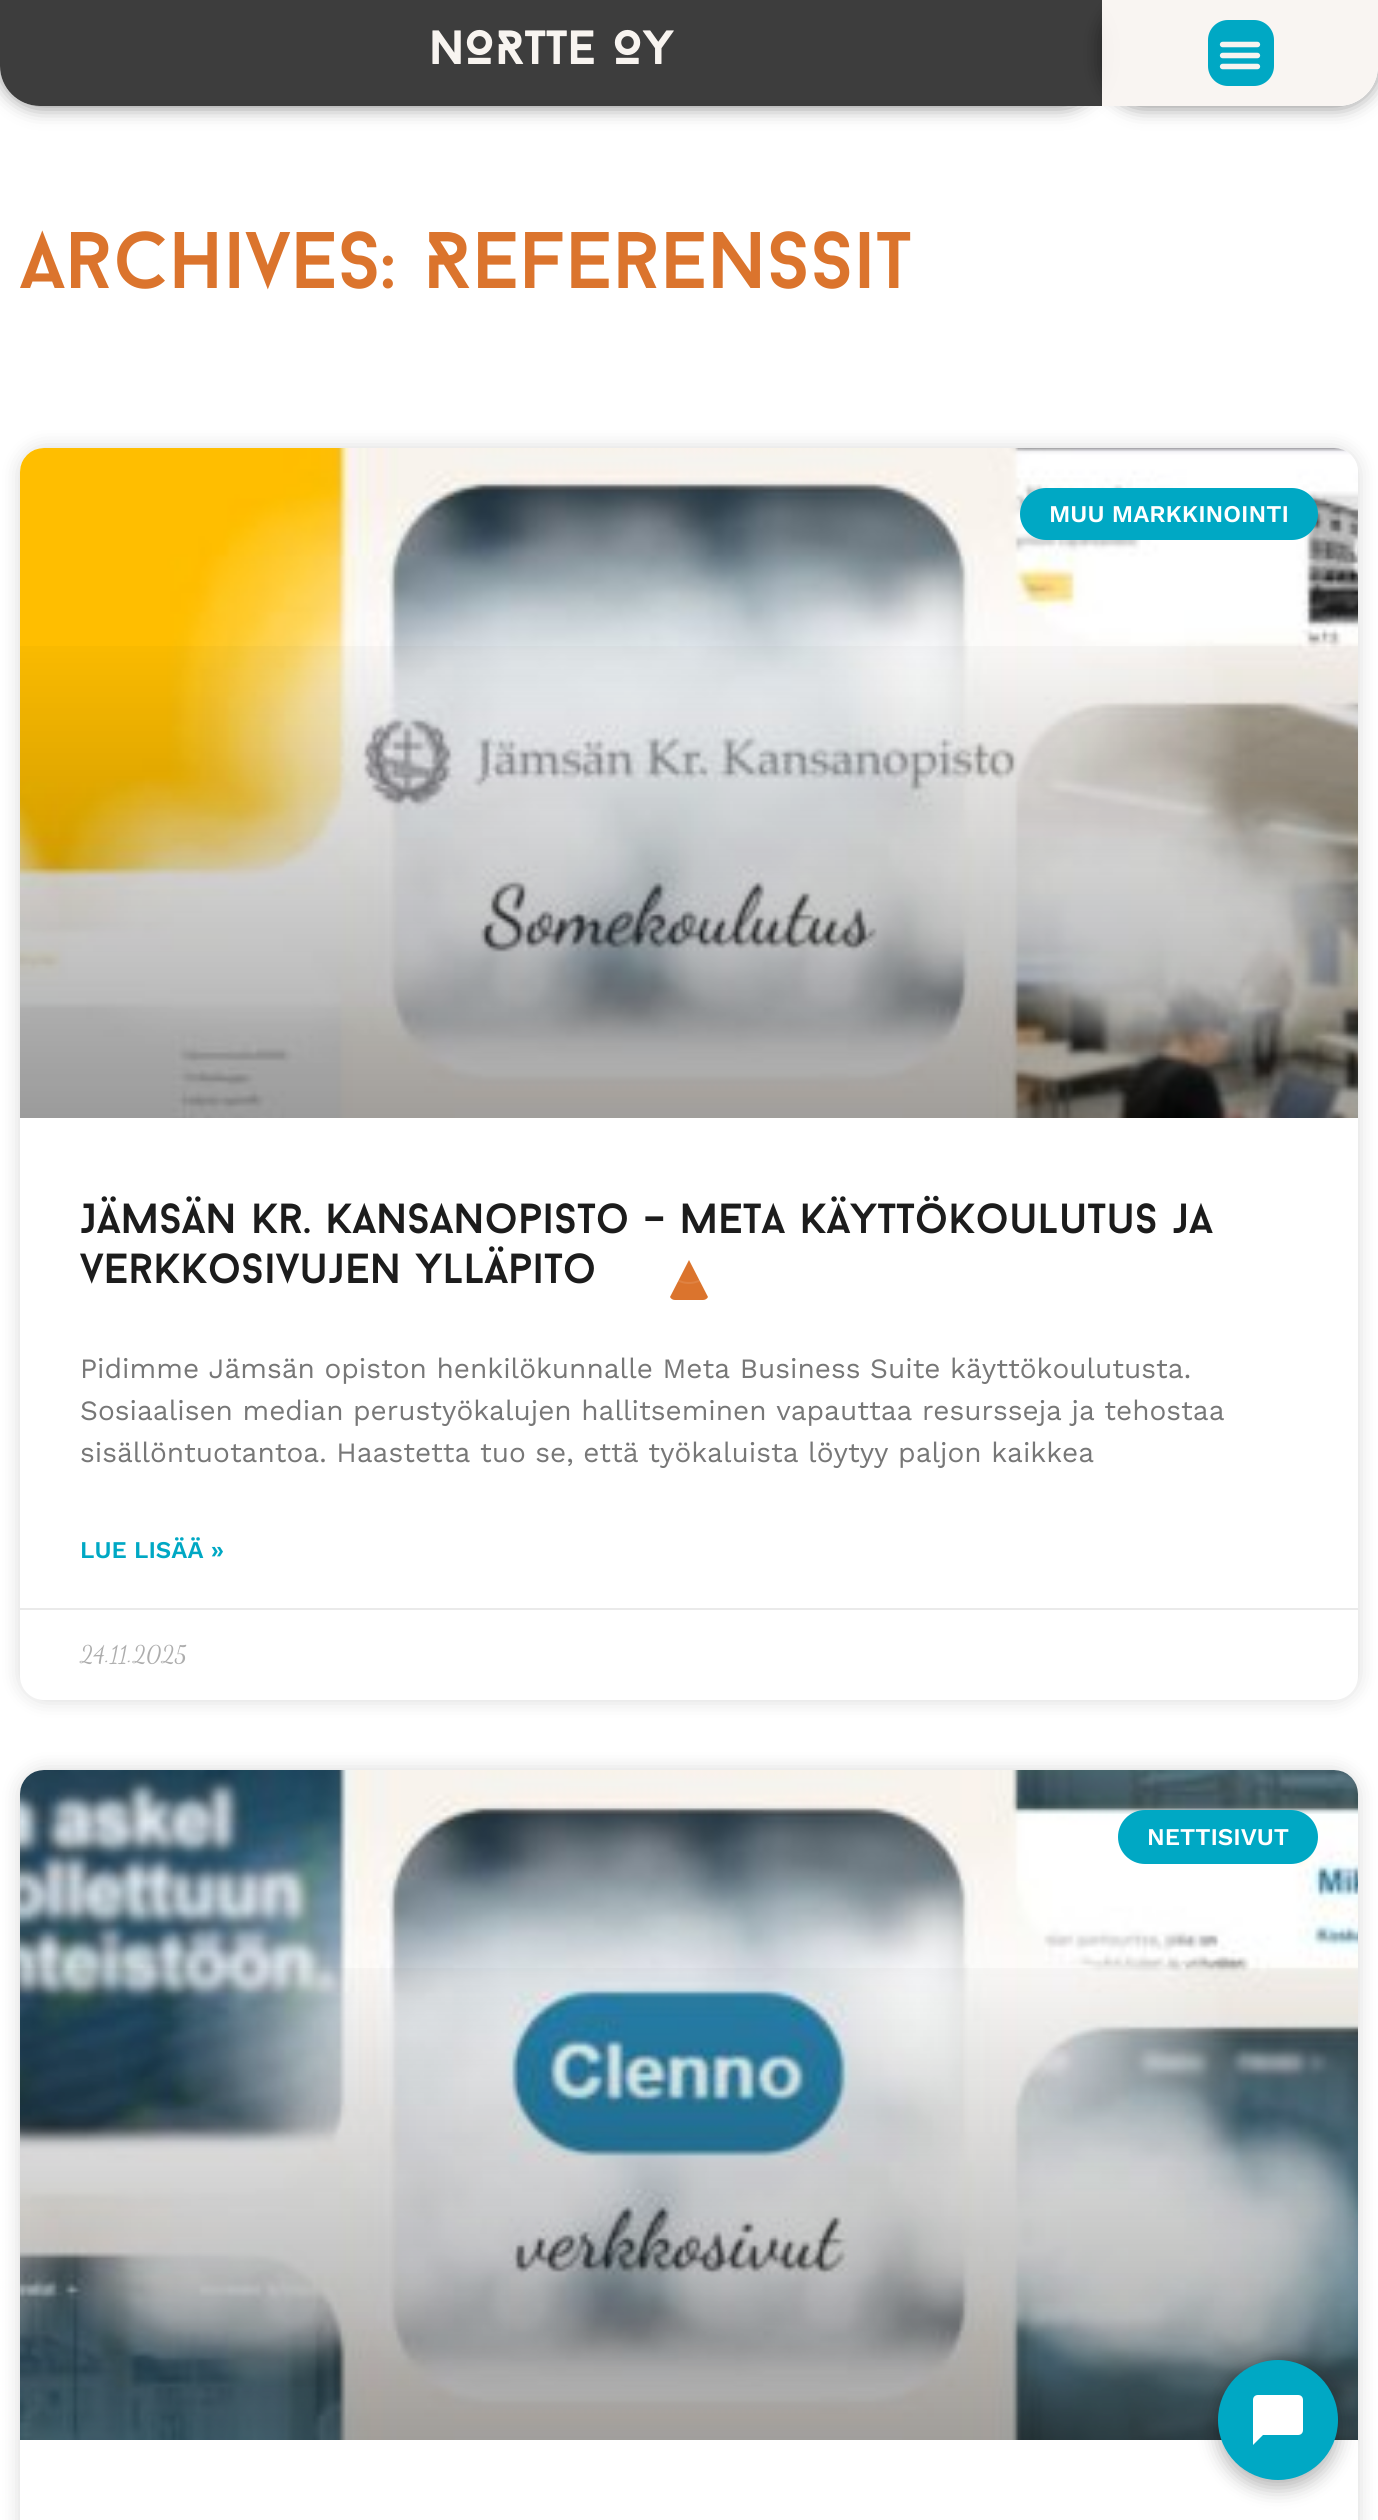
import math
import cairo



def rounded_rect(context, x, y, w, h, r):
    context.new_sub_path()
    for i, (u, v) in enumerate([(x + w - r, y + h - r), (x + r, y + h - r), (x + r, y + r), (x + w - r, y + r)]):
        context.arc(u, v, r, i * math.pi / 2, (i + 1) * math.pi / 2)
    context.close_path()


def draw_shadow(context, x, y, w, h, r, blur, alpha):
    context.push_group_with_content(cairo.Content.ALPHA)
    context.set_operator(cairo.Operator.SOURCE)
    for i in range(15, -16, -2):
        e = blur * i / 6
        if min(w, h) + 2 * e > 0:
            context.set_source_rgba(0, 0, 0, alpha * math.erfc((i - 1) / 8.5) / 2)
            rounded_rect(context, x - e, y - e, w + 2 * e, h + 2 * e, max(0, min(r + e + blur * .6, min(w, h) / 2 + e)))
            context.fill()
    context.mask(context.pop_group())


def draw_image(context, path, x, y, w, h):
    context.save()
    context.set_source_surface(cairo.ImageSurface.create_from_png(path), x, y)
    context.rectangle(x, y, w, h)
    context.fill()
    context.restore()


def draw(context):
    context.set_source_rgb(1, 1, 1)
    context.paint()
    context.save()
    context.set_fill_rule(cairo.FillRule.EVEN_ODD)
    context.new_path()
    context.move_to(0, 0)
    context.line_to(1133, 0)
    context.line_to(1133, 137)
    context.line_to(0, 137)
    context.close_path()
    context.move_to(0, 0)
    context.line_to(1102, 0)
    context.line_to(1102, 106)
    context.line_to(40, 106)
    context.curve_to(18, 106, 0, 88, 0, 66)
    context.close_path()
    context.clip()
    context.set_source_rgb(0, 0, 0)
    draw_shadow(context, 0, 0, 1102, 106, 40, 10, 0.5)
    context.restore()
    context.set_source_rgba(60 / 255, 60 / 255, 60 / 255, 0.99)
    context.new_path()
    context.move_to(0, 0)
    context.line_to(1102, 0)
    context.line_to(1102, 106)
    context.line_to(40, 106)
    context.curve_to(18, 106, 0, 88, 0, 66)
    context.close_path()
    context.fill()
    context.save()
    context.set_fill_rule(cairo.FillRule.EVEN_ODD)
    context.new_path()
    context.move_to(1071, 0)
    context.line_to(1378, 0)
    context.line_to(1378, 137)
    context.line_to(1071, 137)
    context.close_path()
    context.move_to(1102, 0)
    context.line_to(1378, 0)
    context.line_to(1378, 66)
    context.curve_to(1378, 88, 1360, 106, 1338, 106)
    context.line_to(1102, 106)
    context.close_path()
    context.clip()
    context.set_source_rgb(0, 0, 0)
    draw_shadow(context, 1102, 0, 276, 106, 40, 10, 0.5)
    context.restore()
    context.set_source_rgba(248 / 255, 244 / 255, 240 / 255, 0.91)
    context.new_path()
    context.move_to(1102, 0)
    context.line_to(1378, 0)
    context.line_to(1378, 66)
    context.curve_to(1378, 88, 1360, 106, 1338, 106)
    context.line_to(1102, 106)
    context.close_path()
    context.fill()
    context.set_source_rgb(0, 168 / 255, 196 / 255)
    rounded_rect(context, 1208, 20, 66, 66, 20)
    context.fill()
    draw_image(context, "images/1.png", 1219, 41, 42, 29)
    context.set_source_rgb(0, 0, 0)
    draw_shadow(context, 20, 448, 1338, 1252, 24, 10, 0.15)
    context.set_source_rgb(1, 1, 1)
    rounded_rect(context, 20, 448, 1338, 1252, 24)
    context.fill()
    draw_image(context, "images/2.png", 20, 448, 1338, 670)
    gradient = cairo.LinearGradient(689, 1118, 689, 448)
    gradient.add_color_stop_rgba(0, 0, 0, 0, 0.35)
    gradient.add_color_stop_rgba(0.75, 0, 0, 0, 0)
    context.set_source(gradient)
    context.rectangle(20, 646, 1338, 472)
    context.fill()
    context.set_source_rgb(0, 168 / 255, 196 / 255)
    rounded_rect(context, 1020, 488, 298, 52, 26)
    context.fill()
    context.set_source_rgb(234 / 255, 234 / 255, 234 / 255)
    context.rectangle(20, 1608, 1338, 2)
    context.fill()
    context.set_source_rgb(0, 0, 0)
    draw_shadow(context, 20, 1770, 1338, 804, 24, 10, 0.15)
    context.set_source_rgb(1, 1, 1)
    rounded_rect(context, 20, 1770, 1338, 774, 24)
    context.fill()
    draw_image(context, "images/3.png", 20, 1770, 1338, 670)
    gradient = cairo.LinearGradient(689, 2440, 689, 1770)
    gradient.add_color_stop_rgba(0, 0, 0, 0, 0.35)
    gradient.add_color_stop_rgba(0.75, 0, 0, 0, 0)
    context.set_source(gradient)
    context.rectangle(20, 1968, 1338, 472)
    context.fill()
    context.set_source_rgb(0, 168 / 255, 196 / 255)
    rounded_rect(context, 1118, 1810, 200, 54, 27)
    context.fill()
    context.set_source_rgb(219 / 255, 116 / 255, 45 / 255)
    context.new_path()
    context.move_to(689, 1260)
    context.line_to(670, 1297)
    context.curve_to(671, 1299, 673, 1300, 675, 1300)
    context.line_to(703, 1300)
    context.curve_to(705, 1300, 707, 1299, 708, 1297)
    context.close_path()
    context.fill()
    context.arc(689, 1259, 24, 0, 2 * math.pi)
    context.set_source_rgba(1, 1, 1, 0.1)
    context.stroke()
    context.set_source_rgb(0, 0, 0)
    draw_shadow(context, 1218, 2368, 120, 120, 60, 10, 0.3)
    context.set_source_rgb(0, 168 / 255, 196 / 255)
    context.arc(1278, 2420, 60, 0, 2 * math.pi)
    context.fill()
    context.set_source_rgb(1, 1, 1)
    context.new_path()
    context.move_to(1298, 2395)
    context.line_to(1258, 2395)
    context.curve_to(1255, 2395, 1253, 2397, 1253, 2400)
    context.line_to(1253, 2445)
    context.line_to(1263, 2435)
    context.line_to(1298, 2435)
    context.curve_to(1301, 2435, 1303, 2433, 1303, 2430)
    context.line_to(1303, 2400)
    context.curve_to(1303, 2397, 1301, 2395, 1298, 2395)
    context.close_path()
    context.fill()
    context.select_font_face("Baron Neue", cairo.FontSlant.NORMAL, cairo.FontWeight.BOLD)
    context.set_font_size(48)
    context.set_source_rgb(248 / 255, 244 / 255, 240 / 255)
    context.move_to(429, 64)
    context.show_text("NORTTE OY")
    context.select_font_face("Baron Neue")
    context.set_font_size(80)
    context.set_source_rgb(219 / 255, 116 / 255, 45 / 255)
    context.move_to(20, 288)
    context.show_text("Archives: Referenssit")
    context.select_font_face("Work Sans SemiBold")
    context.set_font_size(24)
    context.set_source_rgb(1, 1, 1)
    context.move_to(1049, 522)
    context.show_text("MUU MARKKINOINTI")
    context.select_font_face("Baron Neue")
    context.set_font_size(42)
    context.set_source_rgb(28 / 255, 28 / 255, 28 / 255)
    context.move_to(80, 1233)
    context.show_text("Jämsän Kr. Kansanopisto – Meta käyttökoulutus ja")
    context.move_to(80, 1283)
    context.show_text("verkkosivujen ylläpito")
    context.select_font_face("Work Sans")
    context.set_font_size(28)
    context.set_source_rgb(119 / 255, 119 / 255, 119 / 255)
    context.move_to(80, 1378)
    context.show_text("Pidimme Jämsän opiston henkilökunnalle Meta Business Suite käyttökoulutusta.")
    context.move_to(80, 1420)
    context.show_text("Sosiaalisen median perustyökalujen hallitseminen vapauttaa resursseja ja tehostaa")
    context.move_to(80, 1462)
    context.show_text("sisällöntuotantoa. Haastetta tuo se, että työkaluista löytyy paljon kaikkea")
    context.select_font_face("Work Sans SemiBold")
    context.set_font_size(24)
    context.set_source_rgb(0, 168 / 255, 196 / 255)
    context.move_to(80, 1558)
    context.show_text("LUE LISÄÄ »")
    context.select_font_face("Dancing Script")
    context.set_source_rgb(173 / 255, 173 / 255, 173 / 255)
    context.move_to(80, 1662)
    context.show_text("24.11.2025")
    context.select_font_face("Work Sans SemiBold")
    context.set_source_rgb(1, 1, 1)
    context.move_to(1147, 1845)
    context.show_text("NETTISIVUT")


surface = cairo.ImageSurface(cairo.Format.RGB24, 1378, 2520)
context = cairo.Context(surface)
options = cairo.FontOptions()
options.set_hint_metrics(cairo.HintMetrics.OFF)
options.set_hint_style(cairo.HintStyle.NONE)
context.set_font_options(options)
context.set_miter_limit(4)
draw(context)
surface.write_to_png("out.png")
